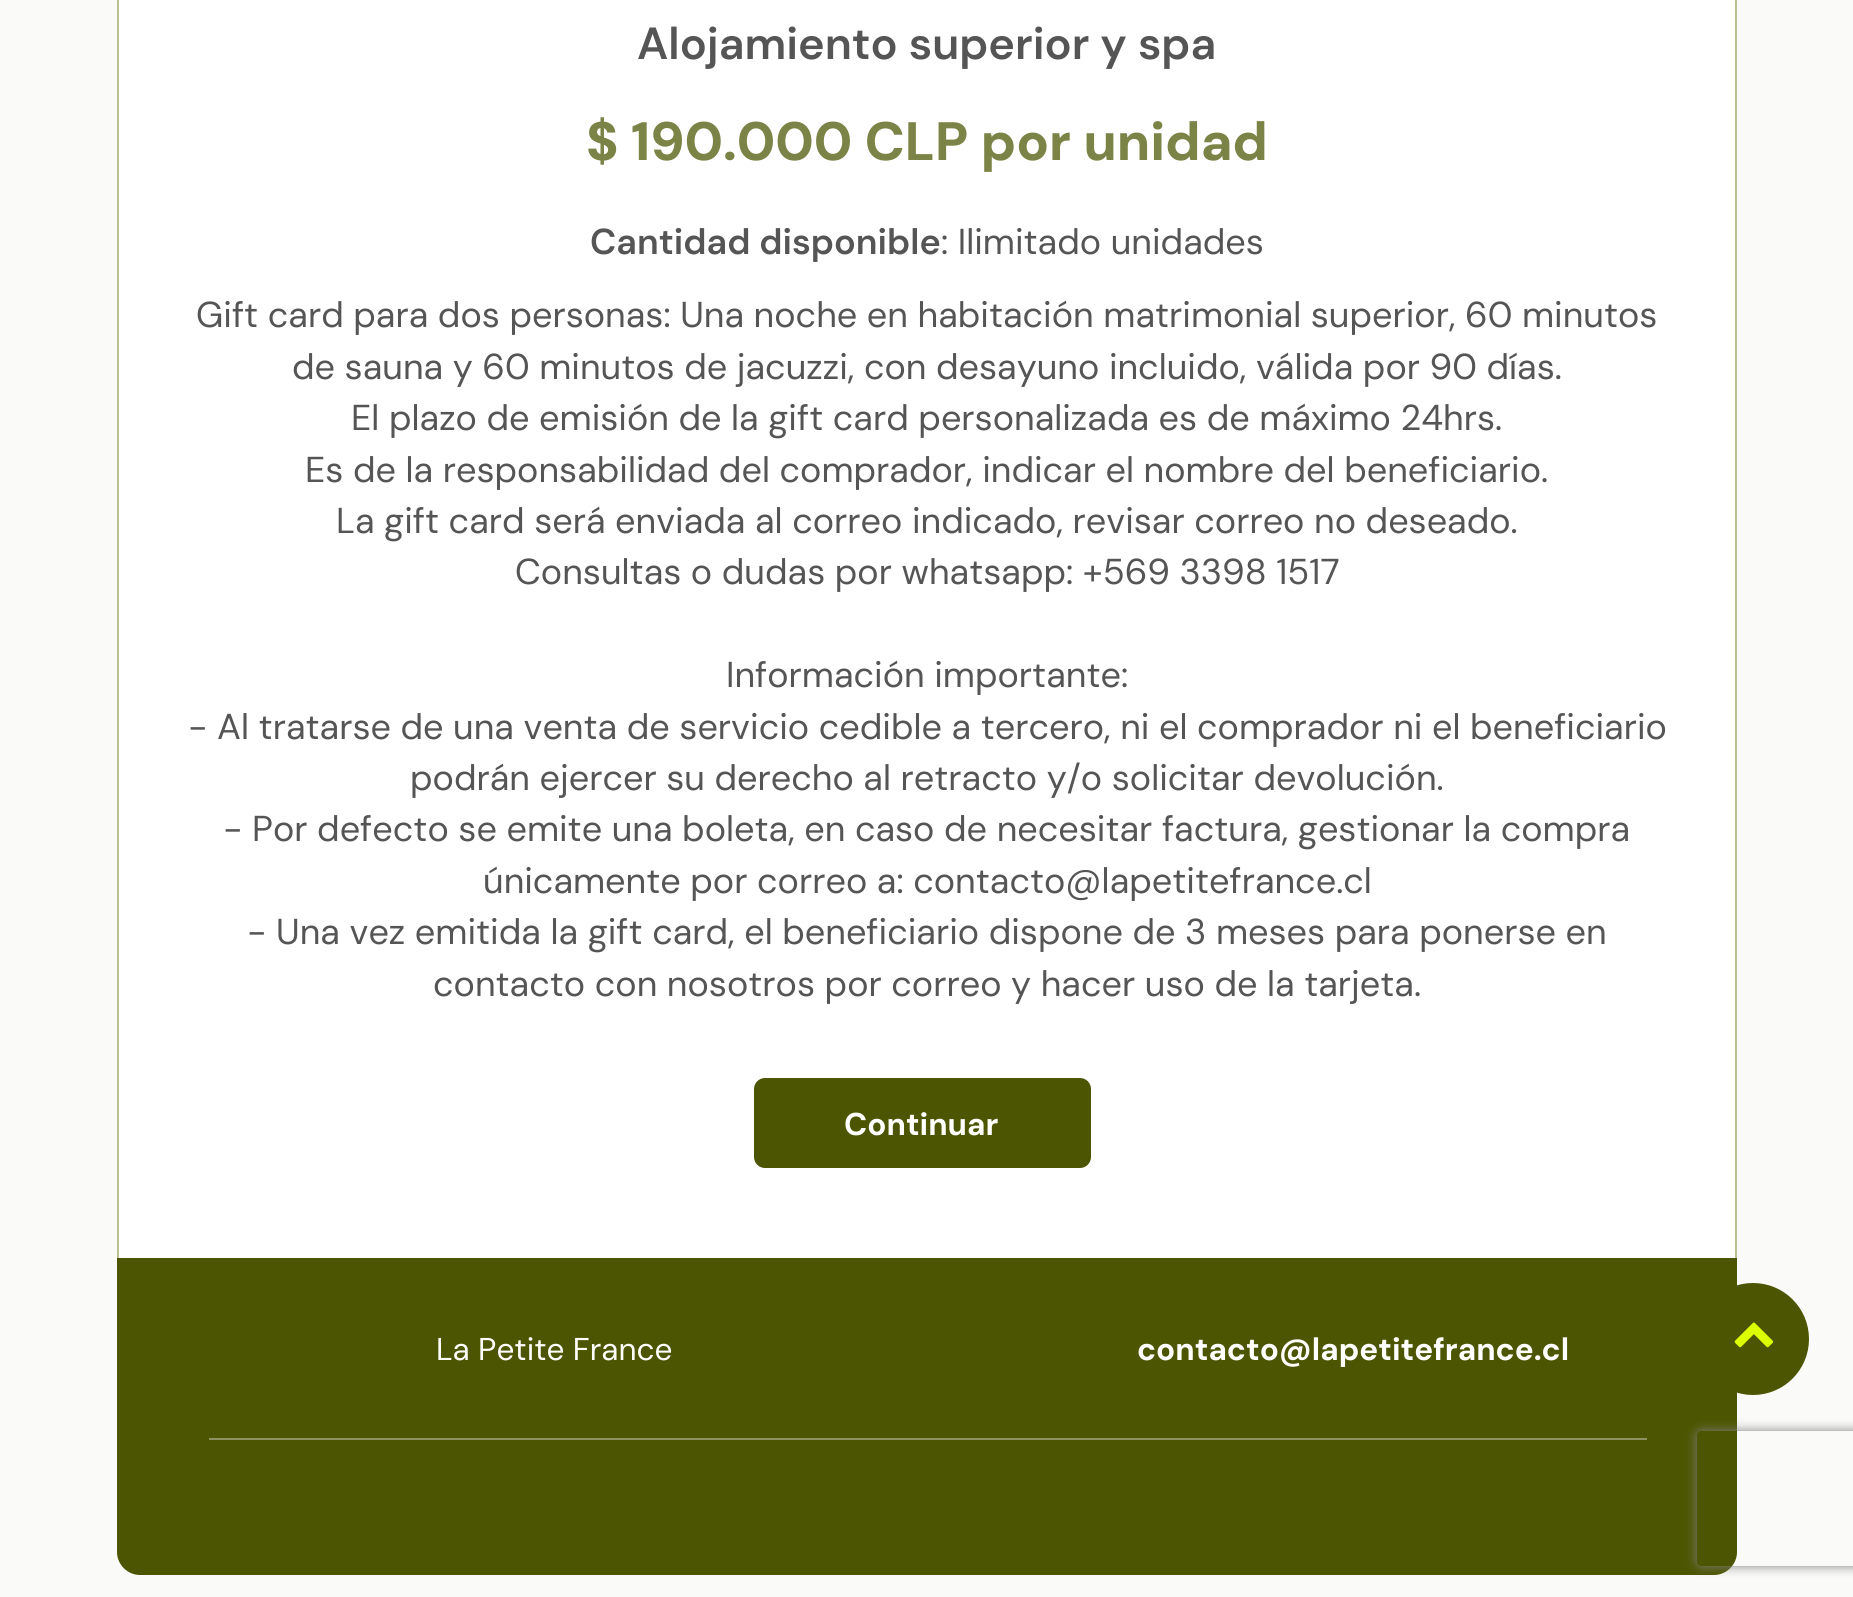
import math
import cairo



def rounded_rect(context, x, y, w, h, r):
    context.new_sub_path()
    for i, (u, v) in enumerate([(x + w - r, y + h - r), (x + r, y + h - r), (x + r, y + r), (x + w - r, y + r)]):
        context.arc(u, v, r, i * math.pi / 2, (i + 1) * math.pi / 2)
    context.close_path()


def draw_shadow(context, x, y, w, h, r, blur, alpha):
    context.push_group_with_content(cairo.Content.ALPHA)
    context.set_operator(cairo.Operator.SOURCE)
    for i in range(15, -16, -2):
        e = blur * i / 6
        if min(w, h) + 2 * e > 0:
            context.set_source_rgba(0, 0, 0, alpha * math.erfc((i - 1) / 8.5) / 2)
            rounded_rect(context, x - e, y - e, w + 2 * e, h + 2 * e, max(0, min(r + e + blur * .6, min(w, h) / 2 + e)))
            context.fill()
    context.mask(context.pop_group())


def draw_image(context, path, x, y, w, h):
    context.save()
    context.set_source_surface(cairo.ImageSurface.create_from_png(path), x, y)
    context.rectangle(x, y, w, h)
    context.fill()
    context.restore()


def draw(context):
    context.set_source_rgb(250 / 255, 250 / 255, 248 / 255)
    context.paint()
    context.set_source_rgb(1, 1, 1)
    context.rectangle(119, 0, 1616, 1258)
    context.fill()
    context.set_source_rgb(186 / 255, 193 / 255, 145 / 255)
    context.set_fill_rule(cairo.FillRule.EVEN_ODD)
    context.new_path()
    context.move_to(140, -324)
    context.line_to(1714, -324)
    context.curve_to(1727, -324, 1737, -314, 1737, -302)
    context.line_to(1737, 1258)
    context.line_to(117, 1258)
    context.line_to(117, -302)
    context.curve_to(117, -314, 127, -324, 140, -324)
    context.close_path()
    context.move_to(140, -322)
    context.line_to(1714, -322)
    context.curve_to(1726, -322, 1735, -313, 1735, -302)
    context.line_to(1735, 1258)
    context.line_to(119, 1258)
    context.line_to(119, -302)
    context.curve_to(119, -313, 128, -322, 140, -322)
    context.close_path()
    context.fill()
    context.set_source_rgb(76 / 255, 85 / 255, 1 / 255)
    rounded_rect(context, 754, 1078, 337, 90, 11)
    context.fill()
    context.new_path()
    context.move_to(117, 1258)
    context.line_to(1737, 1258)
    context.line_to(1737, 1552)
    context.curve_to(1737, 1564.5, 1726.5, 1575, 1714, 1575)
    context.line_to(140, 1575)
    context.curve_to(127.5, 1575, 117, 1564.5, 117, 1552)
    context.close_path()
    context.fill()
    context.set_source_rgb(141 / 255, 146 / 255, 96 / 255)
    context.rectangle(209, 1438, 1438, 2)
    context.fill()
    context.set_source_rgb(76 / 255, 85 / 255, 1 / 255)
    context.arc(1753, 1339, 56, 0, 2 * math.pi)
    context.fill()
    draw_image(context, "images/1.png", 1734, 1322, 40, 26)
    context.save()
    context.new_path()
    context.move_to(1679, 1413)
    context.line_to(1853, 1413)
    context.line_to(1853, 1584)
    context.line_to(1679, 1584)
    context.close_path()
    context.move_to(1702, 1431)
    context.line_to(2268, 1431)
    context.curve_to(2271, 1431, 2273, 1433, 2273, 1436)
    context.line_to(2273, 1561)
    context.curve_to(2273, 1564, 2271, 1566, 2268, 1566)
    context.line_to(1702, 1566)
    context.curve_to(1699, 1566, 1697, 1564, 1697, 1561)
    context.line_to(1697, 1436)
    context.curve_to(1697, 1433, 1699, 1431, 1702, 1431)
    context.close_path()
    context.clip()
    context.set_source_rgb(128 / 255, 128 / 255, 128 / 255)
    draw_shadow(context, 1697, 1431, 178, 135, 5, 5.5, 1)
    context.restore()
    context.select_font_face("DM Sans SemiBold")
    context.set_font_size(45)
    context.set_source_rgb(85 / 255, 85 / 255, 85 / 255)
    context.move_to(637, 59)
    context.show_text("Alojamiento superior y spa")
    context.select_font_face("DM Sans ExtraBold")
    context.set_font_size(54)
    context.set_source_rgb(124 / 255, 131 / 255, 70 / 255)
    context.move_to(586, 160)
    context.show_text("$ 190.000 CLP por unidad")
    context.select_font_face("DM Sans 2 SemiBold")
    context.set_font_size(36)
    context.set_source_rgb(85 / 255, 85 / 255, 85 / 255)
    context.move_to(590, 254)
    context.show_text("Cantidad disponible")
    context.select_font_face("DM Sans")
    context.move_to(941, 254)
    context.show_text(": Ilimitado unidades")
    context.move_to(196, 327)
    context.show_text("Gift card para dos personas: Una noche en habitación matrimonial superior, 60 minutos")
    context.move_to(292, 379)
    context.show_text("de sauna y 60 minutos de jacuzzi, con desayuno incluido, válida por 90 días.")
    context.move_to(351, 430)
    context.show_text("El plazo de emisión de la gift card personalizada es de máximo 24hrs.")
    context.move_to(305, 482)
    context.show_text("Es de la responsabilidad del comprador, indicar el nombre del beneficiario.")
    context.move_to(336, 533)
    context.show_text("La gift card será enviada al correo indicado, revisar correo no deseado.")
    context.move_to(515, 584)
    context.show_text("Consultas o dudas por whatsapp: +569 3398 1517")
    context.move_to(726, 687)
    context.show_text("Información importante:")
    context.move_to(188, 739)
    context.show_text("- Al tratarse de una venta de servicio cedible a tercero, ni el comprador ni el beneficiario")
    context.move_to(410, 790)
    context.show_text("podrán ejercer su derecho al retracto y/o solicitar devolución.")
    context.move_to(223, 841)
    context.show_text("- Por defecto se emite una boleta, en caso de necesitar factura, gestionar la compra")
    context.move_to(483, 893)
    context.show_text("únicamente por correo a: contacto@lapetitefrance.cl")
    context.move_to(247, 944)
    context.show_text("- Una vez emitida la gift card, el beneficiario dispone de 3 meses para ponerse en")
    context.move_to(433, 996)
    context.show_text("contacto con nosotros por correo y hacer uso de la tarjeta.")
    context.select_font_face("DM Sans", cairo.FontSlant.NORMAL, cairo.FontWeight.BOLD)
    context.set_font_size(31.5)
    context.set_source_rgb(1, 1, 1)
    context.move_to(844, 1135)
    context.show_text("Continuar")
    context.select_font_face("DM Sans 2")
    context.move_to(436, 1360)
    context.show_text("La Petite France")
    context.select_font_face("DM Sans", cairo.FontSlant.NORMAL, cairo.FontWeight.BOLD)
    context.move_to(1137, 1360)
    context.show_text("contacto@lapetitefrance.cl")


surface = cairo.ImageSurface(cairo.Format.RGB24, 1853, 1597)
context = cairo.Context(surface)
options = cairo.FontOptions()
options.set_hint_metrics(cairo.HintMetrics.OFF)
options.set_hint_style(cairo.HintStyle.NONE)
context.set_font_options(options)
context.set_miter_limit(4)
draw(context)
surface.write_to_png("out.png")
